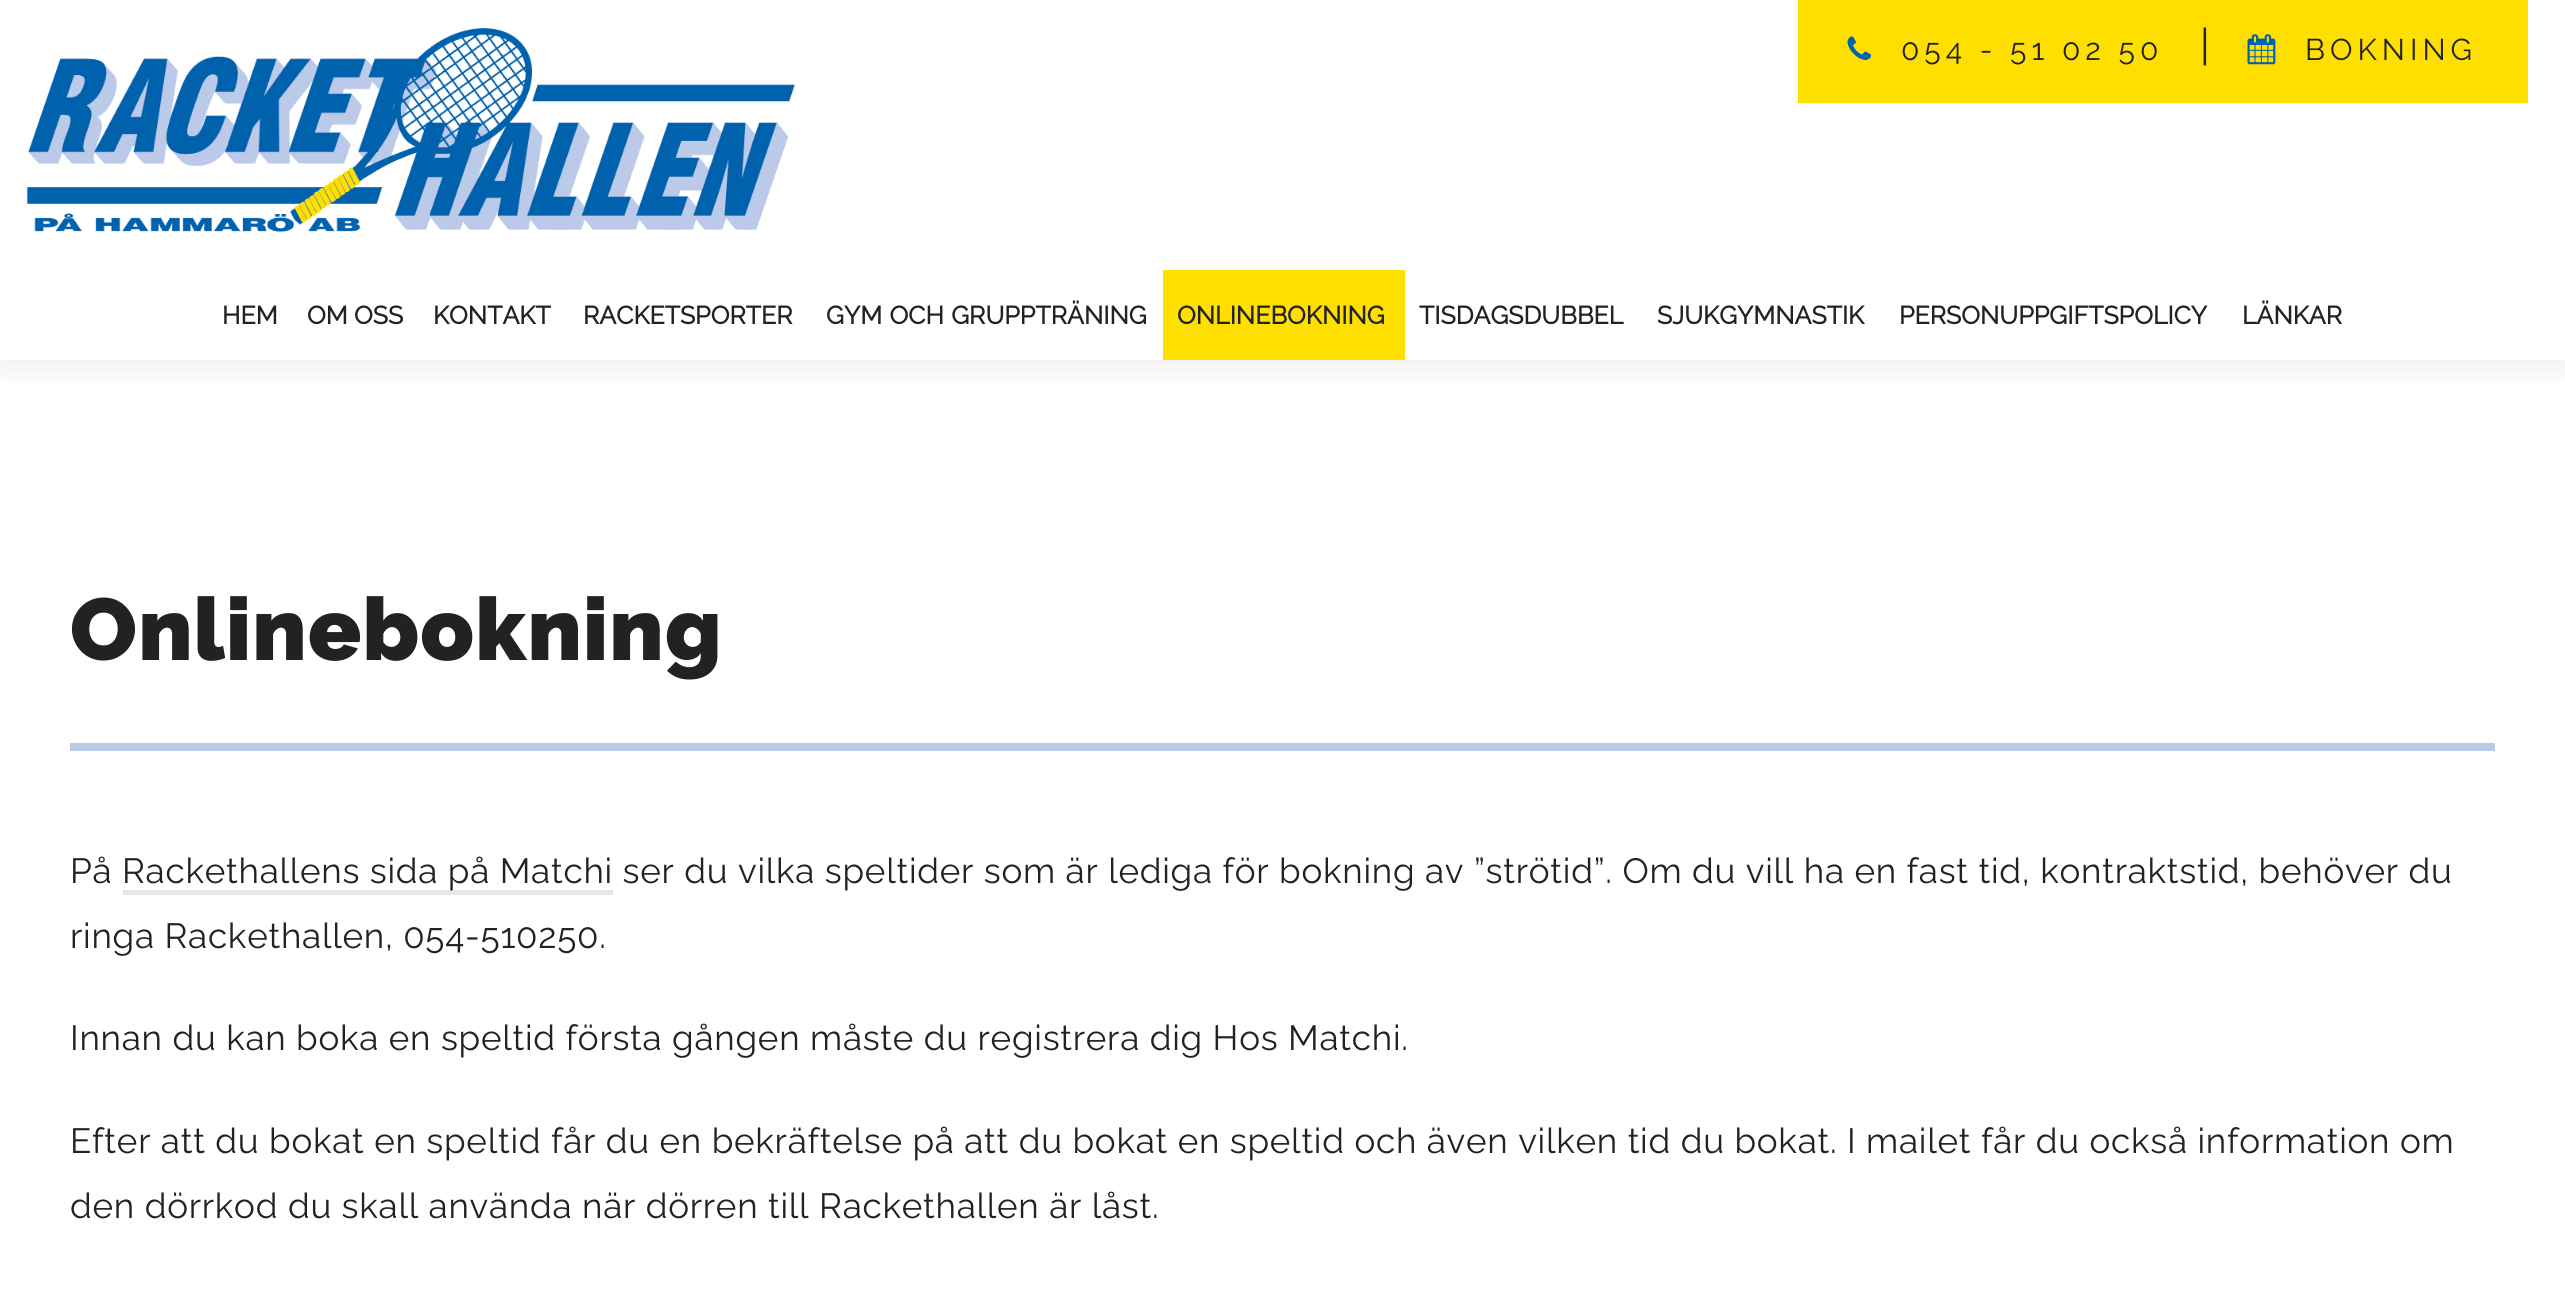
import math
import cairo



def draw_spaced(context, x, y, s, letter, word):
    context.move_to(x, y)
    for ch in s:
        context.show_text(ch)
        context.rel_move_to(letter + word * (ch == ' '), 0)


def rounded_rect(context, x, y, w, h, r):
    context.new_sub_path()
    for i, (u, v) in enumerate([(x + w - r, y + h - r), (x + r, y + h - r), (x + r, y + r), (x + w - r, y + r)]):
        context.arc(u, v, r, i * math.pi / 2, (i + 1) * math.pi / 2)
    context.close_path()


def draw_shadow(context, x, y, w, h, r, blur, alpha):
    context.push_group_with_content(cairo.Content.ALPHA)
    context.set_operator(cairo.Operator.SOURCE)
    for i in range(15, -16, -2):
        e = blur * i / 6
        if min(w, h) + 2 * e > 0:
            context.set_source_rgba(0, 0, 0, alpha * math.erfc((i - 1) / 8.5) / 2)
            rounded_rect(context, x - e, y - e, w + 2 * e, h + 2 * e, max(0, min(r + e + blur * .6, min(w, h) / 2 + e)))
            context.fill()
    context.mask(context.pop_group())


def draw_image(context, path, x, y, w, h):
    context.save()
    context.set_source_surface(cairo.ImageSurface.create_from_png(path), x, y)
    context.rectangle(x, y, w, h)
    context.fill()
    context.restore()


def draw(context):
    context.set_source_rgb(1, 1, 1)
    context.paint()
    context.save()
    context.rectangle(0, 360, 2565, 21)
    context.clip()
    context.set_source_rgb(0, 0, 0)
    draw_shadow(context, 0, 0, 2565, 360, 0, 25, 0.1)
    context.restore()
    draw_image(context, "images/1.png", 26, 28, 769, 204)
    context.set_source_rgb(1, 223 / 255, 0)
    context.rectangle(1798, 0, 730, 103)
    context.fill()
    draw_image(context, "images/2.png", 1847, 36, 24, 24)
    draw_image(context, "images/3.png", 2247, 34, 29, 31)
    context.rectangle(1163, 270, 242, 90)
    context.fill()
    context.set_source_rgb(188 / 255, 202 / 255, 233 / 255)
    context.rectangle(70, 743, 2425, 8)
    context.fill()
    context.set_source_rgb(230 / 255, 230 / 255, 233 / 255)
    context.rectangle(123, 890, 490, 5)
    context.fill()
    context.select_font_face("Raleway")
    context.set_font_size(30)
    context.set_source_rgb(34 / 255, 34 / 255, 34 / 255)
    draw_spaced(context, 1901, 60, "054 - 51 02 50", 5, 0)
    context.set_font_size(42)
    draw_spaced(context, 2200, 60, "|", 0.75, 0)
    context.set_font_size(30)
    draw_spaced(context, 2305, 60, "BOKNING", 5, 0)
    context.select_font_face("Raleway", cairo.FontSlant.NORMAL, cairo.FontWeight.BOLD)
    context.set_font_size(25)
    context.move_to(222, 324)
    context.show_text("HEM")
    context.move_to(307, 324)
    context.show_text("OM OSS")
    context.move_to(433, 324)
    context.show_text("KONTAKT")
    context.move_to(583, 324)
    context.show_text("RACKETSPORTER")
    draw_spaced(context, 826, 324, "GYM OCH GRUPPTRÄNING", 0, 1)
    context.move_to(1177, 324)
    context.show_text("ONLINEBOKNING")
    context.move_to(1419, 324)
    context.show_text("TISDAGSDUBBEL")
    context.move_to(1657, 324)
    context.show_text("SJUKGYMNASTIK")
    context.move_to(1899, 324)
    context.show_text("PERSONUPPGIFTSPOLICY")
    context.move_to(2242, 324)
    context.show_text("LÄNKAR")
    context.select_font_face("Raleway Black")
    context.set_font_size(87.5)
    draw_spaced(context, 70, 660, "Onlinebokning", 1.25, 0)
    context.select_font_face("Raleway")
    context.set_font_size(35)
    draw_spaced(context, 70, 883, "På", 0.75, 0)
    draw_spaced(context, 122, 883, "Rackethallens sida på Matchi ser du vilka speltider som är lediga för bokning av ”strötid”. Om du vill ha en fast tid, kontraktstid, behöver du", 0.75, 0)
    draw_spaced(context, 70, 948, "ringa Rackethallen, 054-510250.", 0.75, 0)
    draw_spaced(context, 70, 1050, "Innan du kan boka en speltid första gången måste du registrera dig Hos Matchi.", 0.75, 0)
    draw_spaced(context, 70, 1153, "Efter att du bokat en speltid får du en bekräftelse på att du bokat en speltid och även vilken tid du bokat. I mailet får du också information om", 0.75, 0)
    draw_spaced(context, 70, 1218, "den dörrkod du skall använda när dörren till Rackethallen är låst.", 0.75, 0)


surface = cairo.ImageSurface(cairo.Format.RGB24, 2565, 1295)
context = cairo.Context(surface)
options = cairo.FontOptions()
options.set_hint_metrics(cairo.HintMetrics.OFF)
options.set_hint_style(cairo.HintStyle.NONE)
context.set_font_options(options)
context.set_miter_limit(4)
draw(context)
surface.write_to_png("out.png")
